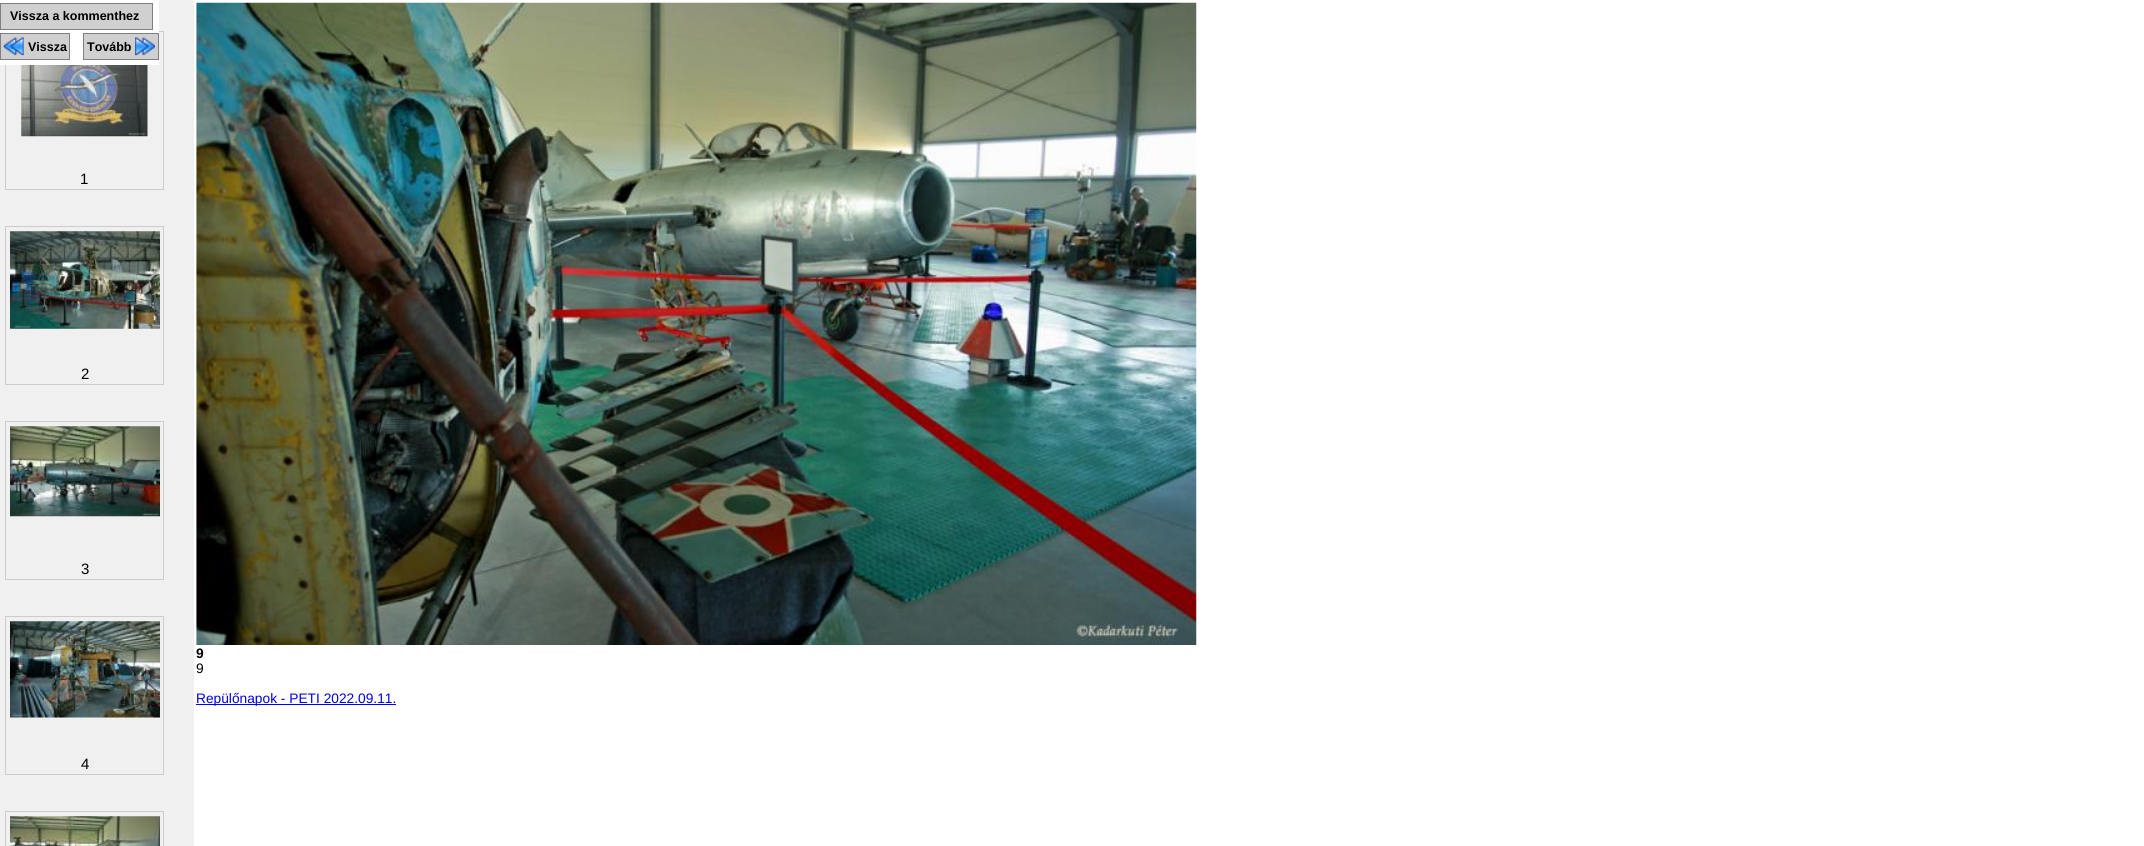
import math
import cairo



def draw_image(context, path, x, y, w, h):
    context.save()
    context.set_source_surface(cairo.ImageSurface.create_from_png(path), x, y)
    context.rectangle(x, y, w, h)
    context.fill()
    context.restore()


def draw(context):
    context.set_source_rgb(1, 1, 1)
    context.paint()
    context.set_source_rgb(240 / 255, 240 / 255, 240 / 255)
    context.rectangle(0, 0, 194, 846)
    context.fill()
    context.rectangle(5.5, 31.5, 158, 158)
    context.set_source_rgb(204 / 255, 204 / 255, 204 / 255)
    context.set_line_width(1)
    context.stroke()
    context.set_source_rgb(1, 1, 1)
    context.rectangle(0, 0, 159, 65)
    context.fill()
    context.set_source_rgb(208 / 255, 208 / 255, 208 / 255)
    context.rectangle(0.5, 3.5, 152, 26)
    context.fill_preserve()
    context.set_source_rgb(128 / 255, 128 / 255, 128 / 255)
    context.stroke()
    context.set_source_rgb(208 / 255, 208 / 255, 208 / 255)
    context.rectangle(0.5, 33.5, 69, 26)
    context.fill_preserve()
    context.set_source_rgb(128 / 255, 128 / 255, 128 / 255)
    context.stroke()
    draw_image(context, "images/1.png", 3, 37, 21, 19)
    context.set_source_rgb(208 / 255, 208 / 255, 208 / 255)
    context.rectangle(83.5, 33.5, 75, 26)
    context.fill_preserve()
    context.set_source_rgb(128 / 255, 128 / 255, 128 / 255)
    context.stroke()
    draw_image(context, "images/2.png", 135, 37, 20, 19)
    draw_image(context, "images/3.png", 21, 65, 127, 72)
    context.rectangle(5.5, 226.5, 158, 158)
    context.set_source_rgb(204 / 255, 204 / 255, 204 / 255)
    context.stroke()
    draw_image(context, "images/4.png", 10, 231, 150, 98)
    context.rectangle(5.5, 421.5, 158, 158)
    context.stroke()
    draw_image(context, "images/5.png", 10, 426, 150, 91)
    context.rectangle(5.5, 616.5, 158, 158)
    context.stroke()
    draw_image(context, "images/6.png", 10, 621, 150, 97)
    context.rectangle(5.5, 811.5, 158, 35)
    context.stroke()
    draw_image(context, "images/7.png", 10, 816, 150, 30)
    draw_image(context, "images/8.png", 196, 2, 1001, 643)
    context.set_source_rgb(0, 0, 238 / 255)
    context.rectangle(196, 704, 200, 1)
    context.fill()
    context.select_font_face("Liberation Sans", cairo.FontSlant.NORMAL, cairo.FontWeight.BOLD)
    context.set_font_size(12.5)
    context.set_source_rgb(0, 0, 0)
    context.move_to(10, 20)
    context.show_text("Vissza a kommenthez")
    context.move_to(28, 51)
    context.show_text("Vissza")
    context.move_to(87, 51)
    context.show_text("Tovább")
    context.select_font_face("Liberation Sans")
    context.set_font_size(15)
    context.move_to(80, 184)
    context.show_text("1")
    context.move_to(81, 379)
    context.show_text("2")
    context.move_to(81, 574)
    context.show_text("3")
    context.move_to(81, 769)
    context.show_text("4")
    context.select_font_face("Liberation Sans", cairo.FontSlant.NORMAL, cairo.FontWeight.BOLD)
    context.set_font_size(13.75)
    context.move_to(196, 658)
    context.show_text("9")
    context.select_font_face("Liberation Sans")
    context.move_to(196, 673)
    context.show_text("9")
    context.set_source_rgb(0, 0, 238 / 255)
    context.move_to(196, 703)
    context.show_text("Repülőnapok - PETI 2022.09.11.")


surface = cairo.ImageSurface(cairo.Format.RGB24, 2144, 846)
context = cairo.Context(surface)
options = cairo.FontOptions()
options.set_hint_metrics(cairo.HintMetrics.OFF)
options.set_hint_style(cairo.HintStyle.NONE)
context.set_font_options(options)
context.set_miter_limit(4)
draw(context)
surface.write_to_png("out.png")
